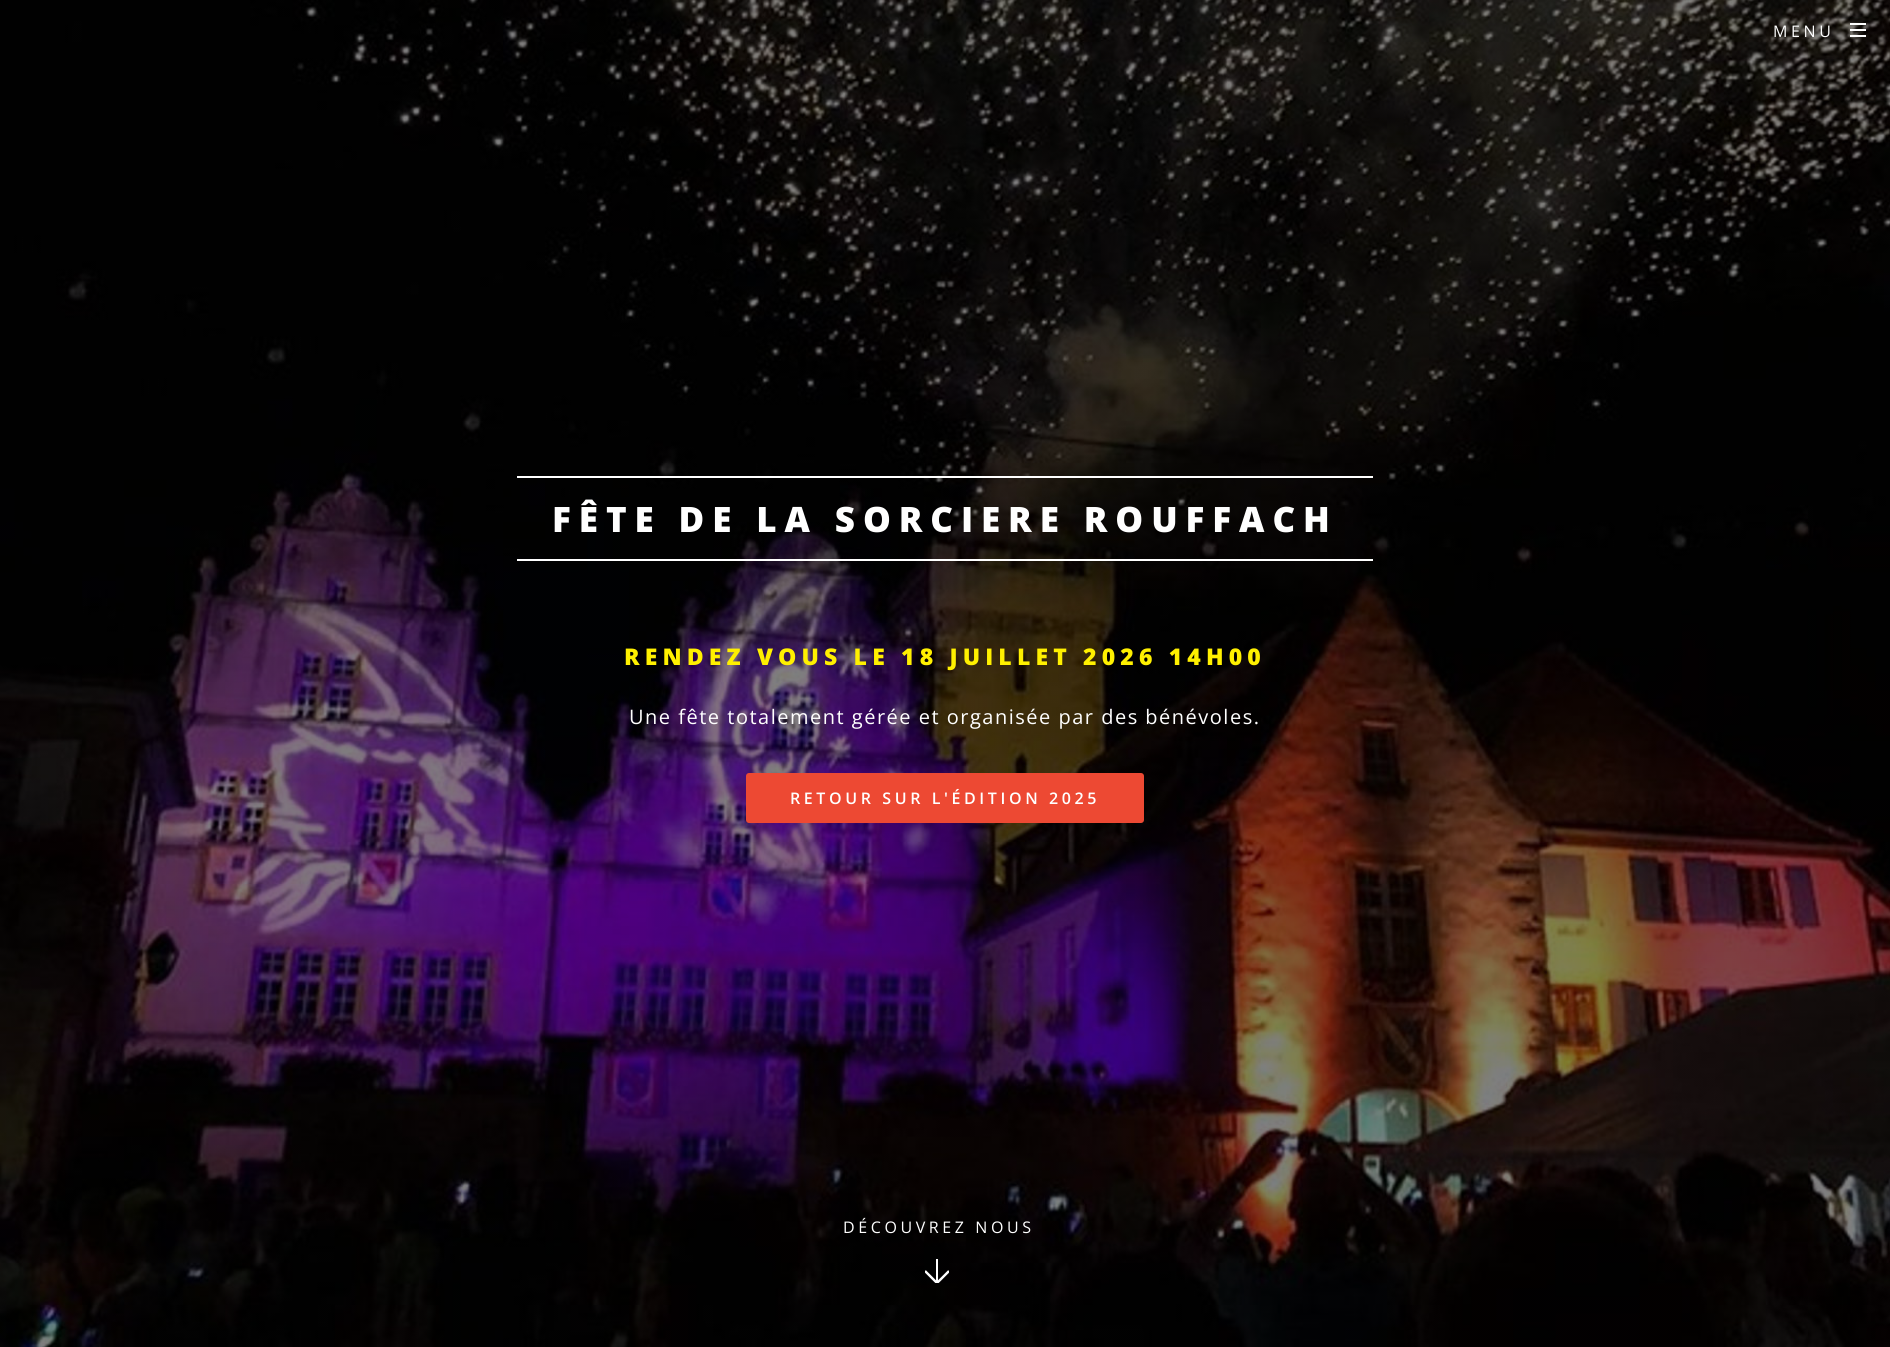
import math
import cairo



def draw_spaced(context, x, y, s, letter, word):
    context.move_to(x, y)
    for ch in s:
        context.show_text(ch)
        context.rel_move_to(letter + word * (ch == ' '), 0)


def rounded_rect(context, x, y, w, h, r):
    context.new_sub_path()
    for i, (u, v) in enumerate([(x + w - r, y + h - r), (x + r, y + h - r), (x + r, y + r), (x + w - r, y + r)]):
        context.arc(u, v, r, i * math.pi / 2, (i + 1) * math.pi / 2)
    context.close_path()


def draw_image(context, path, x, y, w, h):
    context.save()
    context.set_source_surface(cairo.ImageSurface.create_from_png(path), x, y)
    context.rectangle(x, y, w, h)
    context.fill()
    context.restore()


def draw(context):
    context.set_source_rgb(1, 1, 1)
    context.paint()
    draw_image(context, "images/1.png", 0, 0, 1890, 1347)
    context.set_source_rgb(1, 1, 1)
    context.rectangle(1850, 23, 16, 2)
    context.fill()
    context.rectangle(1850, 29, 16, 2)
    context.fill()
    context.rectangle(1850, 35, 16, 2)
    context.fill()
    context.rectangle(517, 476, 856, 2)
    context.fill()
    context.rectangle(517, 559, 856, 2)
    context.fill()
    context.set_source_rgb(237 / 255, 73 / 255, 51 / 255)
    rounded_rect(context, 746, 773, 398, 50, 3)
    context.fill()
    context.save()
    context.rectangle(925, 1259, 24, 24)
    context.clip()
    context.new_path()
    context.move_to(925, 1271)
    context.line_to(937, 1283)
    context.move_to(949, 1271)
    context.line_to(937, 1283)
    context.set_source_rgb(1, 1, 1)
    context.set_line_width(2.4)
    context.stroke()
    context.restore()
    context.set_source_rgb(1, 1, 1)
    context.rectangle(936, 1259, 2, 24)
    context.fill()
    context.select_font_face("Open Sans")
    context.set_font_size(16)
    draw_spaced(context, 1773, 37, "MENU", 3.6, 0)
    context.select_font_face("Open Sans ExtraBold")
    context.set_font_size(35)
    draw_spaced(context, 552, 532, "FÊTE DE LA SORCIERE ROUFFACH", 7.9, 0)
    context.set_font_size(23)
    context.set_source_rgb(1, 240 / 255, 0)
    draw_spaced(context, 624, 665, "RENDEZ VOUS LE 18 JUILLET 2026 14H00", 5.15, 0)
    context.select_font_face("Open Sans")
    context.set_font_size(20)
    context.set_source_rgb(1, 1, 1)
    draw_spaced(context, 629, 724, "Une fête totalement gérée et organisée par des bénévoles.", 1.5, 0)
    context.select_font_face("Open Sans SemiBold")
    context.set_font_size(16)
    draw_spaced(context, 790, 804, "RETOUR SUR L'ÉDITION 2025", 3.6, 0)
    context.select_font_face("Open Sans")
    draw_spaced(context, 843, 1233, "DÉCOUVREZ NOUS", 3.6, 0)


surface = cairo.ImageSurface(cairo.Format.RGB24, 1890, 1347)
context = cairo.Context(surface)
options = cairo.FontOptions()
options.set_hint_metrics(cairo.HintMetrics.OFF)
options.set_hint_style(cairo.HintStyle.NONE)
context.set_font_options(options)
context.set_miter_limit(4)
draw(context)
surface.write_to_png("out.png")
